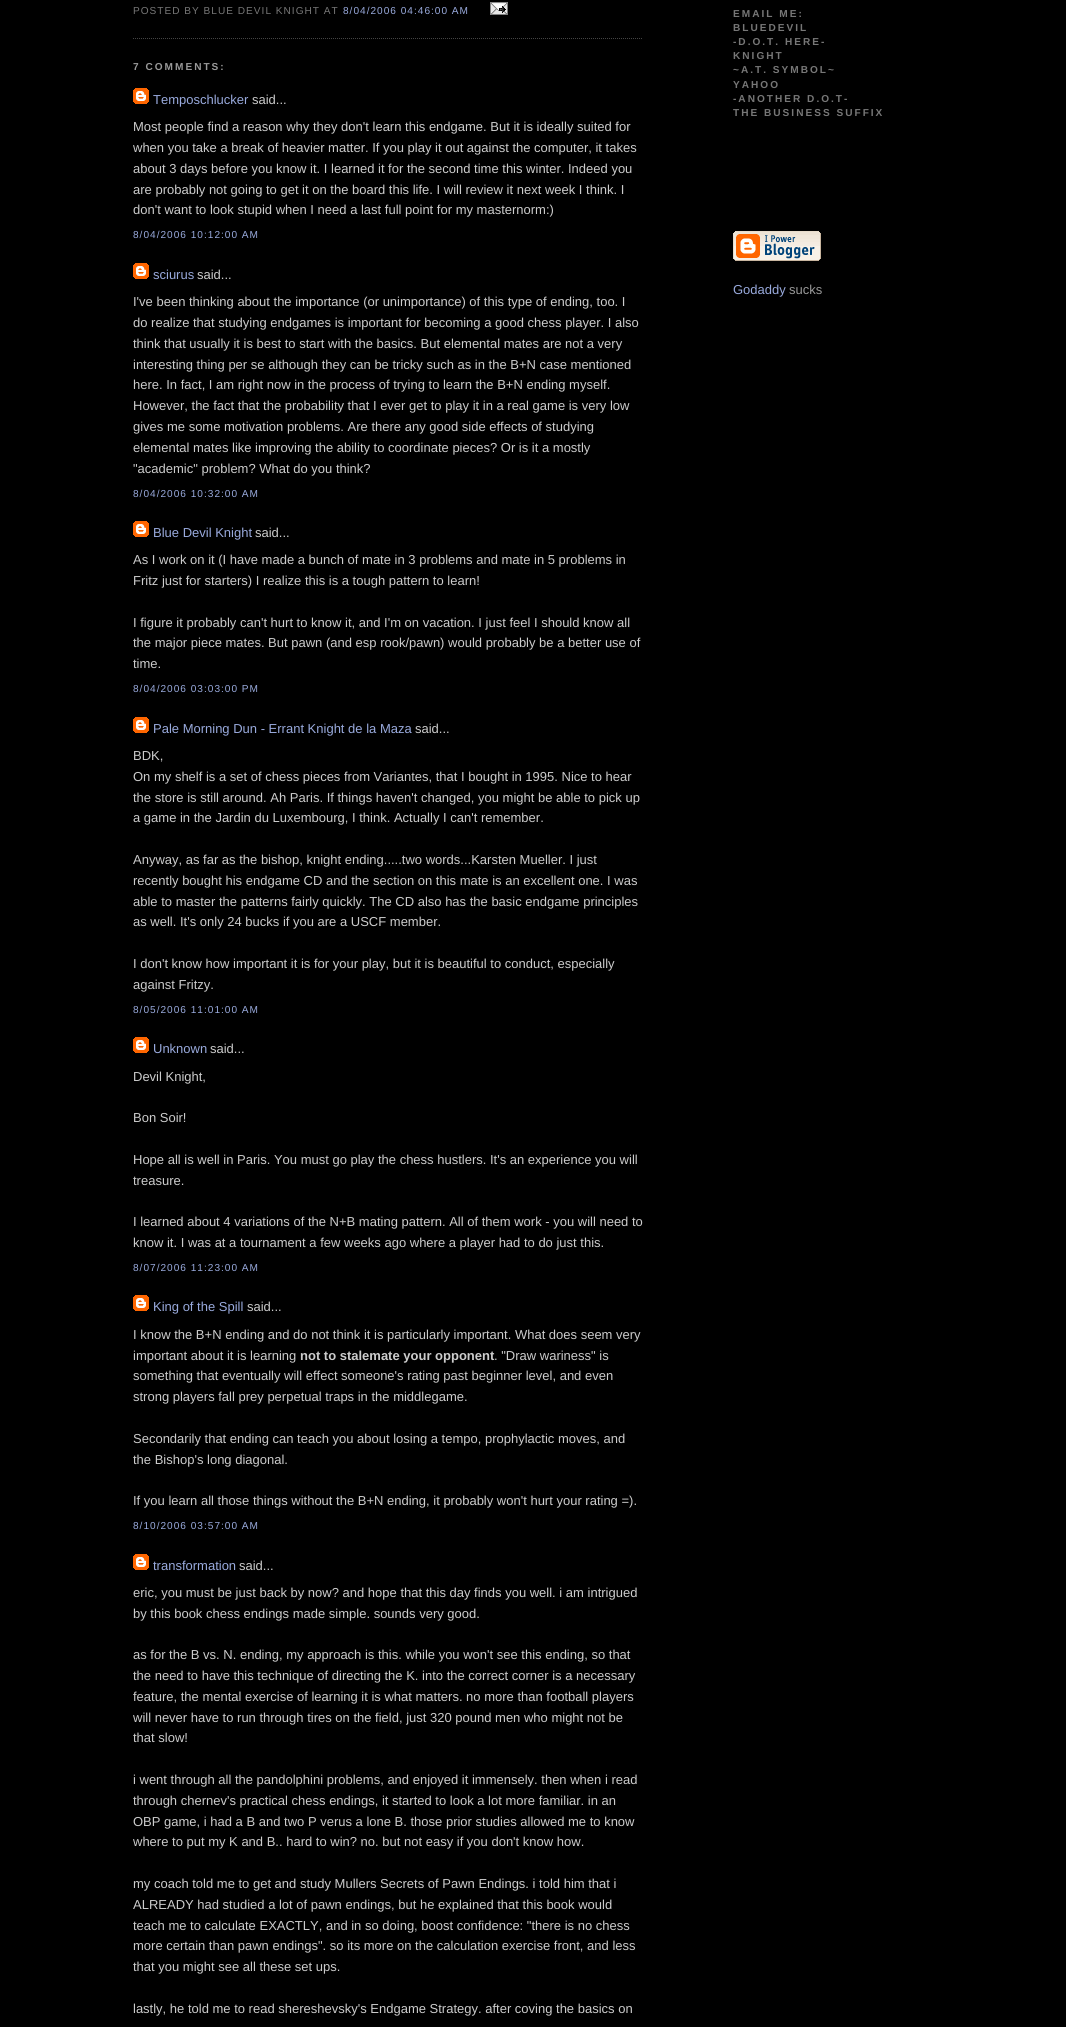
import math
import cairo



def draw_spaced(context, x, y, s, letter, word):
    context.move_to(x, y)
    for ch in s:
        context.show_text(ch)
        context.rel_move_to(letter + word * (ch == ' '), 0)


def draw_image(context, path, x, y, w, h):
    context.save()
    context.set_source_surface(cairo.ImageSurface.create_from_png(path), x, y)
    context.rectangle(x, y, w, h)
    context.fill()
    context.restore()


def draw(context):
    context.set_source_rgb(0, 0, 0)
    context.paint()
    context.new_path()
    context.move_to(133, 38.5)
    context.line_to(643, 38.5)
    context.set_source_rgb(68 / 255, 68 / 255, 68 / 255)
    context.set_line_width(1)
    context.set_dash([1, 1])
    context.stroke()
    draw_image(context, "images/1.png", 490, 2, 18, 13)
    draw_image(context, "images/2.png", 133, 88, 16, 16)
    draw_image(context, "images/2.png", 133, 263, 16, 16)
    draw_image(context, "images/2.png", 133, 521, 16, 16)
    draw_image(context, "images/2.png", 133, 717, 16, 16)
    draw_image(context, "images/2.png", 133, 1037, 16, 16)
    draw_image(context, "images/2.png", 133, 1295, 16, 16)
    draw_image(context, "images/2.png", 133, 1554, 16, 16)
    draw_image(context, "images/3.png", 733, 231, 88, 30)
    context.select_font_face("Liberation Sans")
    context.set_font_size(10.1)
    context.set_source_rgb(119 / 255, 119 / 255, 119 / 255)
    draw_spaced(context, 133, 14, "POSTED BY BLUE DEVIL KNIGHT AT", 1, 0)
    context.set_source_rgb(153 / 255, 170 / 255, 221 / 255)
    draw_spaced(context, 343, 14, "8/04/2006 04:46:00 AM", 1, 0)
    context.select_font_face("Liberation Sans", cairo.FontSlant.NORMAL, cairo.FontWeight.BOLD)
    context.set_source_rgb(153 / 255, 153 / 255, 153 / 255)
    draw_spaced(context, 133, 70, "7 COMMENTS:", 2, 0)
    context.select_font_face("Liberation Sans")
    context.set_font_size(13)
    context.set_source_rgb(153 / 255, 170 / 255, 221 / 255)
    context.move_to(153, 104)
    context.show_text("Temposchlucker")
    context.set_source_rgb(204 / 255, 204 / 255, 204 / 255)
    context.move_to(252, 104)
    context.show_text("said...")
    context.move_to(133, 131)
    context.show_text("Most people find a reason why they don't learn this endgame. But it is ideally suited for")
    context.move_to(133, 152)
    context.show_text("when you take a break of heavier matter. If you play it out against the computer, it takes")
    context.move_to(133, 173)
    context.show_text("about 3 days before you know it. I learned it for the second time this winter. Indeed you")
    context.move_to(133, 194)
    context.show_text("are probably not going to get it on the board this life. I will review it next week I think. I")
    context.move_to(133, 214)
    context.show_text("don't want to look stupid when I need a last full point for my masternorm:)")
    context.set_font_size(10.1)
    context.set_source_rgb(153 / 255, 170 / 255, 221 / 255)
    draw_spaced(context, 133, 238, "8/04/2006 10:12:00 AM", 1, 0)
    context.set_font_size(13)
    context.move_to(153, 279)
    context.show_text("sciurus")
    context.set_source_rgb(204 / 255, 204 / 255, 204 / 255)
    context.move_to(197, 279)
    context.show_text("said...")
    context.move_to(133, 306)
    context.show_text("I've been thinking about the importance (or unimportance) of this type of ending, too. I")
    context.move_to(133, 327)
    context.show_text("do realize that studying endgames is important for becoming a good chess player. I also")
    context.move_to(133, 348)
    context.show_text("think that usually it is best to start with the basics. But elemental mates are not a very")
    context.move_to(133, 369)
    context.show_text("interesting thing per se although they can be tricky such as in the B+N case mentioned")
    context.move_to(133, 389)
    context.show_text("here. In fact, I am right now in the process of trying to learn the B+N ending myself.")
    context.move_to(133, 410)
    context.show_text("However, the fact that the probability that I ever get to play it in a real game is very low")
    context.move_to(133, 431)
    context.show_text("gives me some motivation problems. Are there any good side effects of studying")
    context.move_to(133, 452)
    context.show_text("elemental mates like improving the ability to coordinate pieces? Or is it a mostly")
    context.move_to(133, 473)
    context.show_text("\"academic\" problem? What do you think?")
    context.set_font_size(10.1)
    context.set_source_rgb(153 / 255, 170 / 255, 221 / 255)
    draw_spaced(context, 133, 497, "8/04/2006 10:32:00 AM", 1, 0)
    context.set_font_size(13)
    context.move_to(153, 537)
    context.show_text("Blue Devil Knight")
    context.set_source_rgb(204 / 255, 204 / 255, 204 / 255)
    context.move_to(255, 537)
    context.show_text("said...")
    context.move_to(133, 564)
    context.show_text("As I work on it (I have made a bunch of mate in 3 problems and mate in 5 problems in")
    context.move_to(133, 585)
    context.show_text("Fritz just for starters) I realize this is a tough pattern to learn!")
    context.move_to(133, 627)
    context.show_text("I figure it probably can't hurt to know it, and I'm on vacation. I just feel I should know all")
    context.move_to(133, 647)
    context.show_text("the major piece mates. But pawn (and esp rook/pawn) would probably be a better use of")
    context.move_to(133, 668)
    context.show_text("time.")
    context.set_font_size(10.1)
    context.set_source_rgb(153 / 255, 170 / 255, 221 / 255)
    draw_spaced(context, 133, 692, "8/04/2006 03:03:00 PM", 1, 0)
    context.set_font_size(13)
    context.move_to(153, 733)
    context.show_text("Pale Morning Dun - Errant Knight de la Maza")
    context.set_source_rgb(204 / 255, 204 / 255, 204 / 255)
    context.move_to(415, 733)
    context.show_text("said...")
    context.move_to(133, 760)
    context.show_text("BDK,")
    context.move_to(133, 781)
    context.show_text("On my shelf is a set of chess pieces from Variantes, that I bought in 1995. Nice to hear")
    context.move_to(133, 802)
    context.show_text("the store is still around. Ah Paris. If things haven't changed, you might be able to pick up")
    context.move_to(133, 822)
    context.show_text("a game in the Jardin du Luxembourg, I think. Actually I can't remember.")
    context.move_to(133, 864)
    context.show_text("Anyway, as far as the bishop, knight ending.....two words...Karsten Mueller. I just")
    context.move_to(133, 885)
    context.show_text("recently bought his endgame CD and the section on this mate is an excellent one. I was")
    context.move_to(133, 906)
    context.show_text("able to master the patterns fairly quickly. The CD also has the basic endgame principles")
    context.move_to(133, 926)
    context.show_text("as well. It's only 24 bucks if you are a USCF member.")
    context.move_to(133, 968)
    context.show_text("I don't know how important it is for your play, but it is beautiful to conduct, especially")
    context.move_to(133, 989)
    context.show_text("against Fritzy.")
    context.set_font_size(10.1)
    context.set_source_rgb(153 / 255, 170 / 255, 221 / 255)
    draw_spaced(context, 133, 1013, "8/05/2006 11:01:00 AM", 1, 0)
    context.set_font_size(13)
    context.move_to(153, 1053)
    context.show_text("Unknown")
    context.set_source_rgb(204 / 255, 204 / 255, 204 / 255)
    context.move_to(210, 1053)
    context.show_text("said...")
    context.move_to(133, 1081)
    context.show_text("Devil Knight,")
    context.move_to(133, 1122)
    context.show_text("Bon Soir!")
    context.move_to(133, 1164)
    context.show_text("Hope all is well in Paris. You must go play the chess hustlers. It's an experience you will")
    context.move_to(133, 1185)
    context.show_text("treasure.")
    context.move_to(133, 1226)
    context.show_text("I learned about 4 variations of the N+B mating pattern. All of them work - you will need to")
    context.move_to(133, 1247)
    context.show_text("know it. I was at a tournament a few weeks ago where a player had to do just this.")
    context.set_font_size(10.1)
    context.set_source_rgb(153 / 255, 170 / 255, 221 / 255)
    draw_spaced(context, 133, 1271, "8/07/2006 11:23:00 AM", 1, 0)
    context.set_font_size(13)
    context.move_to(153, 1311)
    context.show_text("King of the Spill")
    context.set_source_rgb(204 / 255, 204 / 255, 204 / 255)
    context.move_to(247, 1311)
    context.show_text("said...")
    context.move_to(133, 1339)
    context.show_text("I know the B+N ending and do not think it is particularly important. What does seem very")
    context.move_to(133, 1360)
    context.show_text("important about it is learning")
    context.select_font_face("Liberation Sans", cairo.FontSlant.NORMAL, cairo.FontWeight.BOLD)
    context.move_to(300, 1360)
    context.show_text("not to stalemate your opponent")
    context.select_font_face("Liberation Sans")
    context.move_to(494, 1360)
    context.show_text(". \"Draw wariness\" is")
    context.move_to(133, 1380)
    context.show_text("something that eventually will effect someone's rating past beginner level, and even")
    context.move_to(133, 1401)
    context.show_text("strong players fall prey perpetual traps in the middlegame.")
    context.move_to(133, 1443)
    context.show_text("Secondarily that ending can teach you about losing a tempo, prophylactic moves, and")
    context.move_to(133, 1464)
    context.show_text("the Bishop's long diagonal.")
    context.move_to(133, 1505)
    context.show_text("If you learn all those things without the B+N ending, it probably won't hurt your rating =).")
    context.set_font_size(10.1)
    context.set_source_rgb(153 / 255, 170 / 255, 221 / 255)
    draw_spaced(context, 133, 1529, "8/10/2006 03:57:00 AM", 1, 0)
    context.set_font_size(13)
    context.move_to(153, 1570)
    context.show_text("transformation")
    context.set_source_rgb(204 / 255, 204 / 255, 204 / 255)
    context.move_to(239, 1570)
    context.show_text("said...")
    context.move_to(133, 1597)
    context.show_text("eric, you must be just back by now? and hope that this day finds you well. i am intrigued")
    context.move_to(133, 1618)
    context.show_text("by this book chess endings made simple. sounds very good.")
    context.move_to(133, 1659)
    context.show_text("as for the B vs. N. ending, my approach is this. while you won't see this ending, so that")
    context.move_to(133, 1680)
    context.show_text("the need to have this technique of directing the K. into the correct corner is a necessary")
    context.move_to(133, 1701)
    context.show_text("feature, the mental exercise of learning it is what matters. no more than football players")
    context.move_to(133, 1722)
    context.show_text("will never have to run through tires on the field, just 320 pound men who might not be")
    context.move_to(133, 1742)
    context.show_text("that slow!")
    context.move_to(133, 1784)
    context.show_text("i went through all the pandolphini problems, and enjoyed it immensely. then when i read")
    context.move_to(133, 1805)
    context.show_text("through chernev's practical chess endings, it started to look a lot more familiar. in an")
    context.move_to(133, 1826)
    context.show_text("OBP game, i had a B and two P verus a lone B. those prior studies allowed me to know")
    context.move_to(133, 1846)
    context.show_text("where to put my K and B.. hard to win? no. but not easy if you don't know how.")
    context.move_to(133, 1888)
    context.show_text("my coach told me to get and study Mullers Secrets of Pawn Endings. i told him that i")
    context.move_to(133, 1909)
    context.show_text("ALREADY had studied a lot of pawn endings, but he explained that this book would")
    context.move_to(133, 1930)
    context.show_text("teach me to calculate EXACTLY, and in so doing, boost confidence: \"there is no chess")
    context.move_to(133, 1950)
    context.show_text("more certain than pawn endings\". so its more on the calculation exercise front, and less")
    context.move_to(133, 1971)
    context.show_text("that you might see all these set ups.")
    context.move_to(133, 2013)
    context.show_text("lastly, he told me to read shereshevsky's Endgame Strategy. after coving the basics on")
    context.select_font_face("Liberation Sans", cairo.FontSlant.NORMAL, cairo.FontWeight.BOLD)
    context.set_font_size(10.1)
    context.set_source_rgb(119 / 255, 119 / 255, 119 / 255)
    draw_spaced(context, 733, 17, "EMAIL ME:", 2, 0)
    draw_spaced(context, 733, 31, "BLUEDEVIL", 2, 0)
    draw_spaced(context, 733, 45, "-D.O.T. HERE-", 2, 0)
    draw_spaced(context, 733, 59, "KNIGHT", 2, 0)
    draw_spaced(context, 733, 73, "~A.T. SYMBOL~", 2, 0)
    draw_spaced(context, 733, 88, "YAHOO", 2, 0)
    draw_spaced(context, 733, 102, "-ANOTHER D.O.T-", 2, 0)
    draw_spaced(context, 733, 116, "THE BUSINESS SUFFIX", 2, 0)
    context.select_font_face("Liberation Sans")
    context.set_font_size(13)
    context.set_source_rgb(153 / 255, 170 / 255, 221 / 255)
    context.move_to(733, 294)
    context.show_text("Godaddy")
    context.set_source_rgb(153 / 255, 153 / 255, 153 / 255)
    context.move_to(789, 294)
    context.show_text("sucks")


surface = cairo.ImageSurface(cairo.Format.RGB24, 1066, 2027)
context = cairo.Context(surface)
options = cairo.FontOptions()
options.set_hint_metrics(cairo.HintMetrics.OFF)
options.set_hint_style(cairo.HintStyle.NONE)
context.set_font_options(options)
context.set_miter_limit(4)
draw(context)
surface.write_to_png("out.png")
